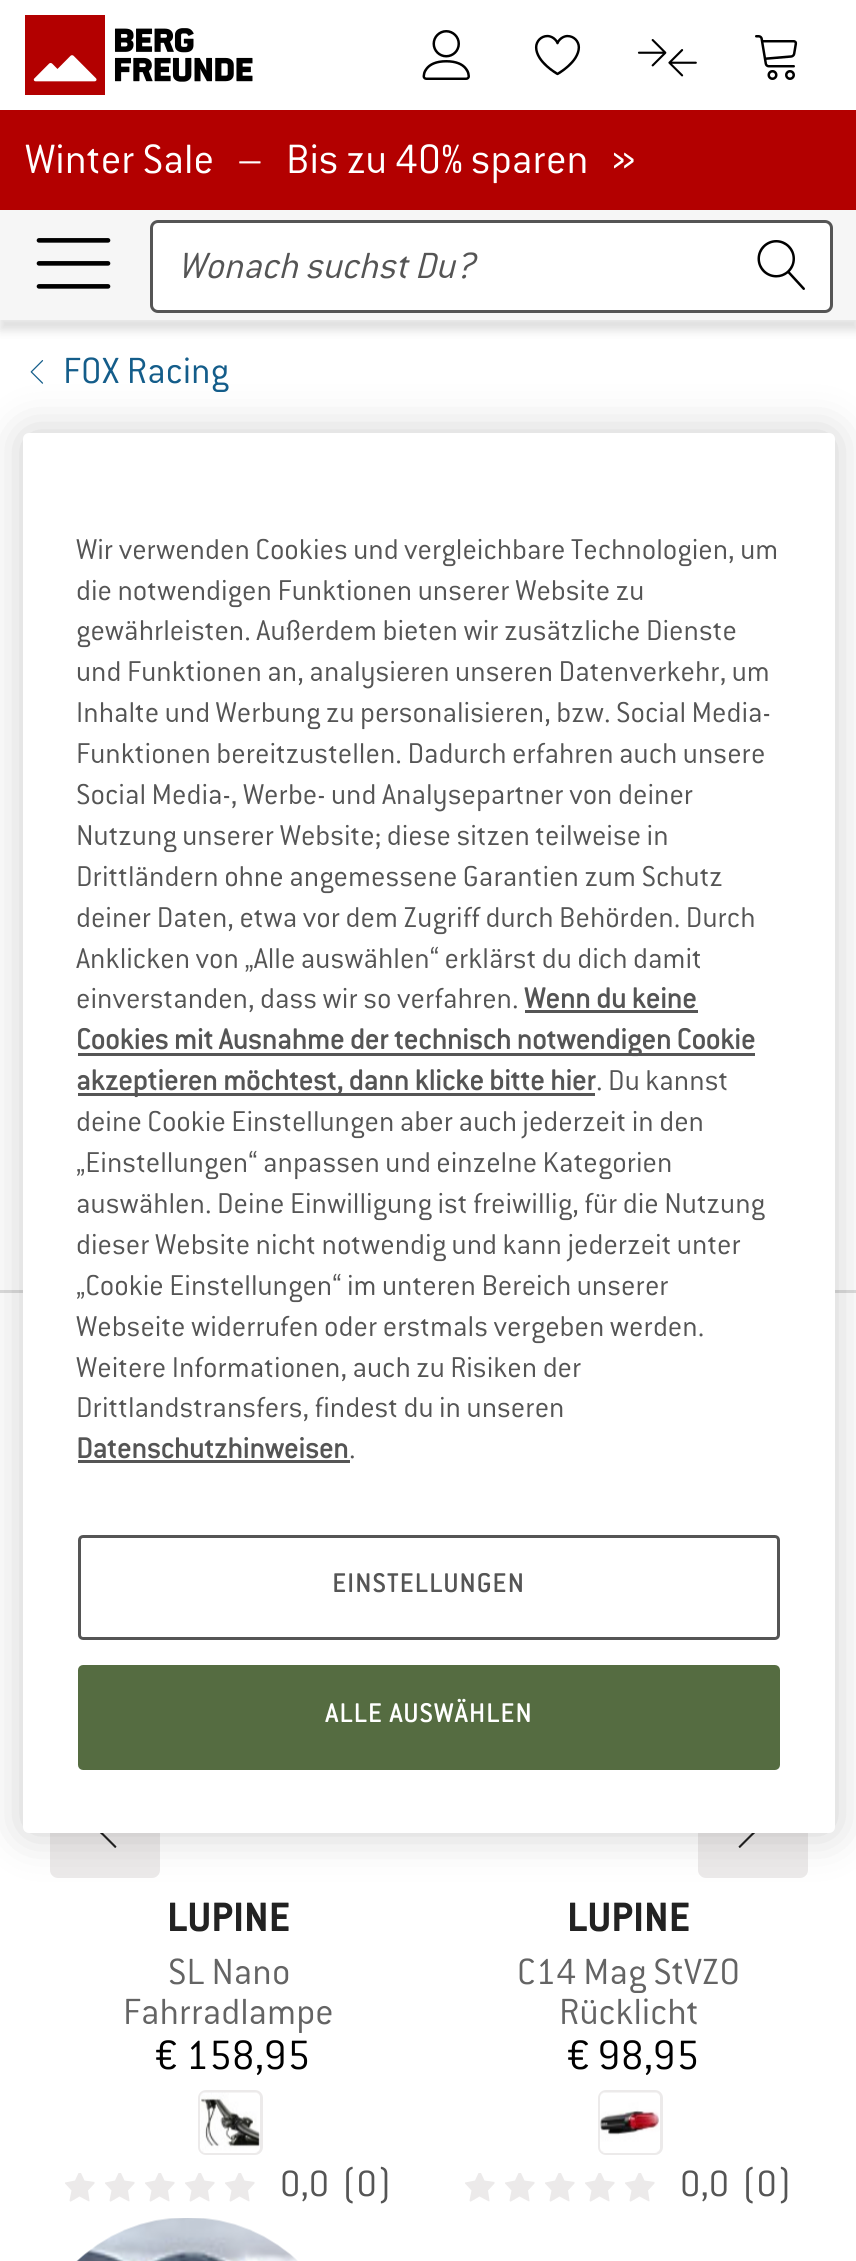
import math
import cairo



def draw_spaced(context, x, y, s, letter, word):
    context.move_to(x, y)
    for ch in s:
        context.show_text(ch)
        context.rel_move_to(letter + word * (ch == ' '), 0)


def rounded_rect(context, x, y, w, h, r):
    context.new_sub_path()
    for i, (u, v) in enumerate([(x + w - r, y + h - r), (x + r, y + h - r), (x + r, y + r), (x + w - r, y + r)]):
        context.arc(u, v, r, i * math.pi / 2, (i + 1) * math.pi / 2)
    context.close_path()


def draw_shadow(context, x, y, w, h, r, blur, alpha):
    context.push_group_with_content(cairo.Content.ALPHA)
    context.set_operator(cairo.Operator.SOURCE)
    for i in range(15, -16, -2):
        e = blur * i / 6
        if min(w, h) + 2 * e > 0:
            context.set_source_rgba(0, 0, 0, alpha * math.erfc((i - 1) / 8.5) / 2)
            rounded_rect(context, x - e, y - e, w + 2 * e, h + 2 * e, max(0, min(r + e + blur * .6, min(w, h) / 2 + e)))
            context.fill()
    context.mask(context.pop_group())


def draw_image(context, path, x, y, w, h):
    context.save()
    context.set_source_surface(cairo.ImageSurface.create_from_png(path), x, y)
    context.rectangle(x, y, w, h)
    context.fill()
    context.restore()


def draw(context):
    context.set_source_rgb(1, 1, 1)
    context.paint()
    draw_image(context, "images/1.png", 25, 15, 228, 80)
    draw_image(context, "images/2.png", 422, 30, 48, 50)
    draw_image(context, "images/3.png", 534, 34, 47, 42)
    draw_image(context, "images/4.png", 637, 39, 60, 38)
    draw_image(context, "images/5.png", 755, 35, 43, 45)
    context.set_source_rgb(179 / 255, 0, 0)
    context.rectangle(0, 110, 856, 100)
    context.fill()
    context.set_source_rgb(246 / 255, 246 / 255, 246 / 255)
    context.rectangle(0, 210, 856, 110)
    context.fill()
    draw_image(context, "images/6.png", 36, 238, 75, 51)
    context.set_source_rgb(1, 1, 1)
    rounded_rect(context, 151.5, 221.5, 680, 90, 6.5)
    context.fill_preserve()
    context.set_source_rgb(85 / 255, 85 / 255, 85 / 255)
    context.set_line_width(3)
    context.stroke()
    draw_image(context, "images/7.png", 757, 240, 48, 50)
    context.save()
    context.rectangle(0, 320, 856, 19)
    context.clip()
    context.set_source_rgb(198 / 255, 198 / 255, 198 / 255)
    draw_shadow(context, 0, 318, 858, 12, 0, 5, 0.6)
    context.restore()
    draw_image(context, "images/8.png", 30, 360, 14, 24)
    context.set_source_rgb(221 / 255, 221 / 255, 221 / 255)
    context.rectangle(0, 1290, 856, 3)
    context.fill()
    context.set_source_rgb(236 / 255, 234 / 255, 234 / 255)
    rounded_rect(context, 50, 1768, 110, 110, 8)
    context.fill()
    context.set_source_rgb(34 / 255, 34 / 255, 34 / 255)
    context.new_path()
    context.move_to(115, 1848)
    context.curve_to(116, 1848, 117, 1846, 116, 1846)
    context.line_to(94, 1824)
    context.line_to(116, 1802)
    context.curve_to(117, 1801, 116, 1800, 115, 1800)
    context.line_to(103, 1812)
    context.curve_to(87, 1827, 87, 1820, 103, 1836)
    context.close_path()
    context.fill()
    context.set_source_rgb(236 / 255, 234 / 255, 234 / 255)
    rounded_rect(context, 698, 1768, 110, 110, 8)
    context.fill()
    context.set_source_rgb(34 / 255, 34 / 255, 34 / 255)
    context.new_path()
    context.move_to(740, 1848)
    context.curve_to(739, 1848, 738, 1846, 739, 1846)
    context.line_to(761, 1824)
    context.line_to(739, 1802)
    context.curve_to(738, 1801, 739, 1800, 740, 1800)
    context.line_to(752, 1812)
    context.curve_to(768, 1827, 768, 1820, 752, 1836)
    context.close_path()
    context.fill()
    rounded_rect(context, 199.5, 2091.5, 62, 62, 6.5)
    context.set_source_rgb(236 / 255, 234 / 255, 234 / 255)
    context.stroke()
    draw_image(context, "images/9.png", 200, 2092, 60, 61)
    context.new_path()
    context.move_to(89, 2201.5)
    context.line_to(89.5, 2201)
    context.line_to(89.5, 2200.5)
    context.line_to(88, 2190.5)
    context.line_to(94.5, 2183.5)
    context.line_to(94.5, 2182.5)
    context.line_to(94.5, 2182)
    context.line_to(84.5, 2180.5)
    context.line_to(81, 2173)
    context.line_to(78.5, 2173)
    context.line_to(75, 2180.5)
    context.line_to(65, 2182.5)
    context.line_to(65, 2183.5)
    context.line_to(71.5, 2190.5)
    context.line_to(69.5, 2200.5)
    context.line_to(70, 2201.5)
    context.line_to(71, 2201.5)
    context.line_to(79.5, 2196.5)
    context.close_path()
    context.fill()
    context.new_path()
    context.move_to(129, 2201.5)
    context.line_to(129.5, 2201)
    context.line_to(129.5, 2200.5)
    context.line_to(128, 2190.5)
    context.line_to(134.5, 2183.5)
    context.line_to(134.5, 2182.5)
    context.line_to(134.5, 2182)
    context.line_to(124.5, 2180.5)
    context.line_to(121, 2173)
    context.line_to(118.5, 2173)
    context.line_to(115, 2180.5)
    context.line_to(105, 2182.5)
    context.line_to(105, 2183.5)
    context.line_to(111.5, 2190.5)
    context.line_to(109.5, 2200.5)
    context.line_to(110, 2201.5)
    context.line_to(111, 2201.5)
    context.line_to(119.5, 2196.5)
    context.close_path()
    context.fill()
    context.new_path()
    context.move_to(169, 2201.5)
    context.line_to(169.5, 2201)
    context.line_to(169.5, 2200.5)
    context.line_to(168, 2190.5)
    context.line_to(174.5, 2183.5)
    context.line_to(174.5, 2182.5)
    context.line_to(174.5, 2182)
    context.line_to(164.5, 2180.5)
    context.line_to(161, 2173)
    context.line_to(158.5, 2173)
    context.line_to(155, 2180.5)
    context.line_to(145, 2182.5)
    context.line_to(145, 2183.5)
    context.line_to(151.5, 2190.5)
    context.line_to(149.5, 2200.5)
    context.line_to(150, 2201.5)
    context.line_to(151, 2201.5)
    context.line_to(159.5, 2196.5)
    context.close_path()
    context.fill()
    context.new_path()
    context.move_to(209, 2201.5)
    context.line_to(209.5, 2201)
    context.line_to(209.5, 2200.5)
    context.line_to(208, 2190.5)
    context.line_to(214.5, 2183.5)
    context.line_to(214.5, 2182.5)
    context.line_to(214.5, 2182)
    context.line_to(204.5, 2180.5)
    context.line_to(201, 2173)
    context.line_to(198.5, 2173)
    context.line_to(195, 2180.5)
    context.line_to(185, 2182.5)
    context.line_to(185, 2183.5)
    context.line_to(191.5, 2190.5)
    context.line_to(189.5, 2200.5)
    context.line_to(190, 2201.5)
    context.line_to(191, 2201.5)
    context.line_to(199.5, 2196.5)
    context.close_path()
    context.fill()
    context.new_path()
    context.move_to(249, 2201.5)
    context.line_to(249.5, 2201)
    context.line_to(249.5, 2200.5)
    context.line_to(248, 2190.5)
    context.line_to(254.5, 2183.5)
    context.line_to(254.5, 2182.5)
    context.line_to(254.5, 2182)
    context.line_to(244.5, 2180.5)
    context.line_to(241, 2173)
    context.line_to(238.5, 2173)
    context.line_to(235, 2180.5)
    context.line_to(225, 2182.5)
    context.line_to(225, 2183.5)
    context.line_to(231.5, 2190.5)
    context.line_to(229.5, 2200.5)
    context.line_to(230, 2201.5)
    context.line_to(231, 2201.5)
    context.line_to(239.5, 2196.5)
    context.close_path()
    context.fill()
    rounded_rect(context, 599.5, 2091.5, 62, 62, 6.5)
    context.stroke()
    draw_image(context, "images/10.png", 600, 2092, 60, 61)
    context.new_path()
    context.move_to(489, 2201.5)
    context.line_to(489.5, 2201)
    context.line_to(489.5, 2200.5)
    context.line_to(488, 2190.5)
    context.line_to(494.5, 2183.5)
    context.line_to(494.5, 2182.5)
    context.line_to(494.5, 2182)
    context.line_to(484.5, 2180.5)
    context.line_to(481, 2173)
    context.line_to(478.5, 2173)
    context.line_to(475, 2180.5)
    context.line_to(465, 2182.5)
    context.line_to(465, 2183.5)
    context.line_to(471.5, 2190.5)
    context.line_to(469.5, 2200.5)
    context.line_to(470, 2201.5)
    context.line_to(471, 2201.5)
    context.line_to(479.5, 2196.5)
    context.close_path()
    context.fill()
    context.new_path()
    context.move_to(529, 2201.5)
    context.line_to(529.5, 2201)
    context.line_to(529.5, 2200.5)
    context.line_to(528, 2190.5)
    context.line_to(534.5, 2183.5)
    context.line_to(534.5, 2182.5)
    context.line_to(534.5, 2182)
    context.line_to(524.5, 2180.5)
    context.line_to(521, 2173)
    context.line_to(518.5, 2173)
    context.line_to(515, 2180.5)
    context.line_to(505, 2182.5)
    context.line_to(505, 2183.5)
    context.line_to(511.5, 2190.5)
    context.line_to(509.5, 2200.5)
    context.line_to(510, 2201.5)
    context.line_to(511, 2201.5)
    context.line_to(519.5, 2196.5)
    context.close_path()
    context.fill()
    context.new_path()
    context.move_to(569, 2201.5)
    context.line_to(569.5, 2201)
    context.line_to(569.5, 2200.5)
    context.line_to(568, 2190.5)
    context.line_to(574.5, 2183.5)
    context.line_to(574.5, 2182.5)
    context.line_to(574.5, 2182)
    context.line_to(564.5, 2180.5)
    context.line_to(561, 2173)
    context.line_to(558.5, 2173)
    context.line_to(555, 2180.5)
    context.line_to(545, 2182.5)
    context.line_to(545, 2183.5)
    context.line_to(551.5, 2190.5)
    context.line_to(549.5, 2200.5)
    context.line_to(550, 2201.5)
    context.line_to(551, 2201.5)
    context.line_to(559.5, 2196.5)
    context.close_path()
    context.fill()
    context.new_path()
    context.move_to(609, 2201.5)
    context.line_to(609.5, 2201)
    context.line_to(609.5, 2200.5)
    context.line_to(608, 2190.5)
    context.line_to(614.5, 2183.5)
    context.line_to(614.5, 2182.5)
    context.line_to(614.5, 2182)
    context.line_to(604.5, 2180.5)
    context.line_to(601, 2173)
    context.line_to(598.5, 2173)
    context.line_to(595, 2180.5)
    context.line_to(585, 2182.5)
    context.line_to(585, 2183.5)
    context.line_to(591.5, 2190.5)
    context.line_to(589.5, 2200.5)
    context.line_to(590, 2201.5)
    context.line_to(591, 2201.5)
    context.line_to(599.5, 2196.5)
    context.close_path()
    context.fill()
    context.new_path()
    context.move_to(649, 2201.5)
    context.line_to(649.5, 2201)
    context.line_to(649.5, 2200.5)
    context.line_to(648, 2190.5)
    context.line_to(654.5, 2183.5)
    context.line_to(654.5, 2182.5)
    context.line_to(654.5, 2182)
    context.line_to(644.5, 2180.5)
    context.line_to(641, 2173)
    context.line_to(638.5, 2173)
    context.line_to(635, 2180.5)
    context.line_to(625, 2182.5)
    context.line_to(625, 2183.5)
    context.line_to(631.5, 2190.5)
    context.line_to(629.5, 2200.5)
    context.line_to(630, 2201.5)
    context.line_to(631, 2201.5)
    context.line_to(639.5, 2196.5)
    context.close_path()
    context.fill()
    draw_image(context, "images/11.png", 76, 2218, 222, 43)
    context.set_source_rgb(0, 0, 0)
    draw_shadow(context, 23, 433, 812, 1400, 6, 22.5, 0.2)
    context.set_source_rgb(1, 1, 1)
    rounded_rect(context, 23, 433, 812, 1400, 6)
    context.fill()
    context.set_source_rgb(85 / 255, 85 / 255, 85 / 255)
    context.rectangle(525, 1010, 173, 3)
    context.fill()
    context.rectangle(78, 1053, 677, 3)
    context.fill()
    context.rectangle(78, 1093, 517, 3)
    context.fill()
    context.rectangle(78, 1460, 272, 3)
    context.fill()
    rounded_rect(context, 79.5, 1536.5, 699, 102, 3.5)
    context.stroke()
    context.set_source_rgb(85 / 255, 108 / 255, 65 / 255)
    rounded_rect(context, 79.5, 1666.5, 699, 102, 3.5)
    context.fill_preserve()
    context.stroke()
    context.select_font_face("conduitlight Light")
    context.set_font_size(45)
    context.set_source_rgb(1, 1, 1)
    context.move_to(25, 173)
    context.show_text("Winter Sale")
    context.move_to(237, 173)
    context.show_text("–")
    context.move_to(286, 173)
    context.show_text("Bis zu 40% sparen")
    context.move_to(611, 173)
    context.show_text("»")
    context.select_font_face("conduitlight Light", cairo.FontSlant.ITALIC)
    context.set_font_size(40)
    context.set_source_rgb(85 / 255, 85 / 255, 85 / 255)
    context.move_to(178, 278)
    context.show_text("Wonach suchst Du?")
    context.select_font_face("conduitlight Light")
    context.set_source_rgb(20 / 255, 93 / 255, 138 / 255)
    context.move_to(63, 383)
    context.show_text("FOX Racing")
    context.select_font_face("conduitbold", cairo.FontSlant.NORMAL, cairo.FontWeight.BOLD)
    context.set_font_size(45)
    context.set_source_rgb(34 / 255, 34 / 255, 34 / 255)
    context.move_to(167, 1931)
    context.show_text("LUPINE")
    context.select_font_face("conduitlight Light")
    context.set_font_size(40)
    context.set_source_rgb(100 / 255, 100 / 255, 100 / 255)
    context.move_to(168, 1984)
    context.show_text("SL Nano")
    context.move_to(123, 2024)
    context.show_text("Fahrradlampe")
    context.set_font_size(45)
    context.set_source_rgb(0, 0, 0)
    context.move_to(155, 2069)
    context.show_text("€ 158,95")
    context.set_font_size(40)
    context.set_source_rgb(85 / 255, 85 / 255, 85 / 255)
    context.move_to(280, 2196)
    context.show_text("0,0")
    context.move_to(341, 2196)
    context.show_text("(0)")
    context.select_font_face("conduitbold", cairo.FontSlant.NORMAL, cairo.FontWeight.BOLD)
    context.set_font_size(45)
    context.set_source_rgb(34 / 255, 34 / 255, 34 / 255)
    context.move_to(567, 1931)
    context.show_text("LUPINE")
    context.select_font_face("conduitlight Light")
    context.set_font_size(40)
    context.set_source_rgb(100 / 255, 100 / 255, 100 / 255)
    context.move_to(517, 1984)
    context.show_text("C14 Mag StVZO")
    context.move_to(559, 2024)
    context.show_text("Rücklicht")
    context.set_font_size(45)
    context.set_source_rgb(0, 0, 0)
    context.move_to(567, 2069)
    context.show_text("€ 98,95")
    context.set_font_size(40)
    context.set_source_rgb(85 / 255, 85 / 255, 85 / 255)
    context.move_to(680, 2196)
    context.show_text("0,0")
    context.move_to(741, 2196)
    context.show_text("(0)")
    context.set_font_size(31.5)
    context.move_to(76, 559)
    context.show_text("Wir verwenden Cookies und vergleichbare Technologien, um")
    context.move_to(76, 600)
    context.show_text("die notwendigen Funktionen unserer Website zu")
    context.move_to(76, 640)
    context.show_text("gewährleisten. Außerdem bieten wir zusätzliche Dienste")
    context.move_to(76, 681)
    context.show_text("und Funktionen an, analysieren unseren Datenverkehr, um")
    context.move_to(76, 722)
    context.show_text("Inhalte und Werbung zu personalisieren, bzw. Social Media-")
    context.move_to(76, 763)
    context.show_text("Funktionen bereitzustellen. Dadurch erfahren auch unsere")
    context.move_to(76, 804)
    context.show_text("Social Media-, Werbe- und Analysepartner von deiner")
    context.move_to(76, 845)
    context.show_text("Nutzung unserer Website; diese sitzen teilweise in")
    context.move_to(76, 886)
    context.show_text("Drittländern ohne angemessene Garantien zum Schutz")
    context.move_to(76, 927)
    context.show_text("deiner Daten, etwa vor dem Zugriff durch Behörden. Durch")
    context.move_to(76, 968)
    context.show_text("Anklicken von „Alle auswählen“ erklärst du dich damit")
    context.move_to(76, 1008)
    context.show_text("einverstanden, dass wir so verfahren.")
    context.select_font_face("conduitlight", cairo.FontSlant.NORMAL, cairo.FontWeight.BOLD)
    context.move_to(524, 1008)
    context.show_text("Wenn du keine")
    context.move_to(76, 1049)
    context.show_text("Cookies mit Ausnahme der technisch notwendigen Cookie")
    context.move_to(76, 1090)
    context.show_text("akzeptieren möchtest, dann klicke bitte hier")
    context.select_font_face("conduitlight Light")
    context.move_to(596, 1090)
    context.show_text(". Du kannst")
    context.move_to(76, 1131)
    context.show_text("deine Cookie Einstellungen aber auch jederzeit in den")
    context.move_to(76, 1172)
    context.show_text("„Einstellungen“ anpassen und einzelne Kategorien")
    context.move_to(76, 1213)
    context.show_text("auswählen. Deine Einwilligung ist freiwillig, für die Nutzung")
    context.move_to(76, 1254)
    context.show_text("dieser Website nicht notwendig und kann jederzeit unter")
    context.move_to(76, 1295)
    context.show_text("„Cookie Einstellungen“ im unteren Bereich unserer")
    context.move_to(76, 1336)
    context.show_text("Webseite widerrufen oder erstmals vergeben werden.")
    context.move_to(76, 1377)
    context.show_text("Weitere Informationen, auch zu Risiken der")
    context.move_to(76, 1417)
    context.show_text("Drittlandstransfers, findest du in unseren")
    context.select_font_face("conduitlight", cairo.FontSlant.NORMAL, cairo.FontWeight.BOLD)
    context.move_to(76, 1458)
    context.show_text("Datenschutzhinweisen")
    context.select_font_face("conduitlight Light")
    context.move_to(349, 1458)
    context.show_text(".")
    context.select_font_face("conduitlight", cairo.FontSlant.NORMAL, cairo.FontWeight.BOLD)
    context.set_font_size(28.5)
    draw_spaced(context, 332, 1592, "EINSTELLUNGEN", 1.4, 0)
    context.set_source_rgb(1, 1, 1)
    draw_spaced(context, 325, 1722, "ALLE AUSWÄHLEN", 1.4, 0)


surface = cairo.ImageSurface(cairo.Format.RGB24, 856, 2261)
context = cairo.Context(surface)
options = cairo.FontOptions()
options.set_hint_metrics(cairo.HintMetrics.OFF)
options.set_hint_style(cairo.HintStyle.NONE)
context.set_font_options(options)
context.set_miter_limit(4)
draw(context)
surface.write_to_png("out.png")
